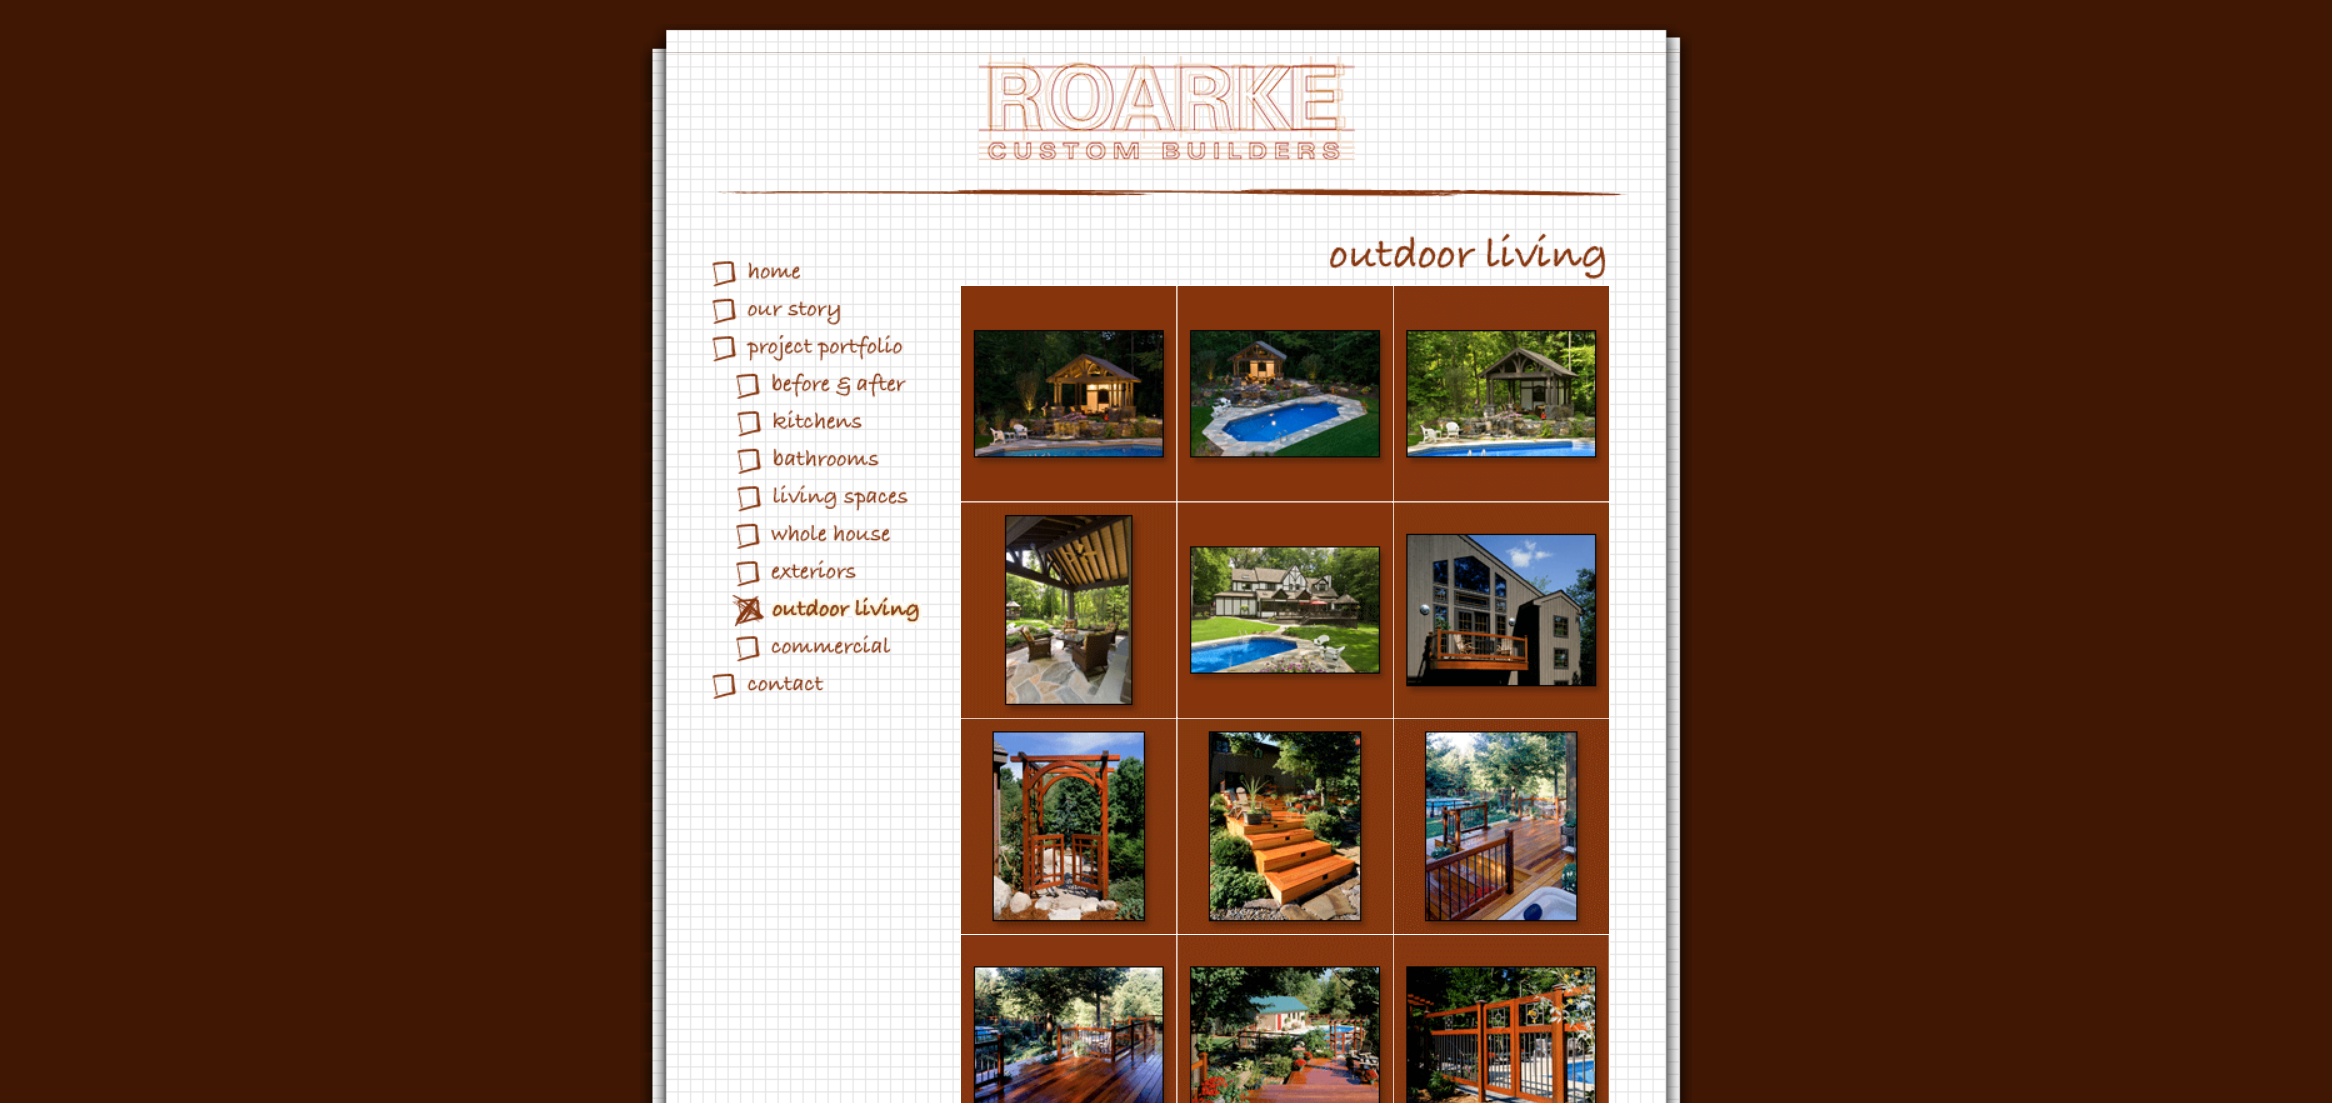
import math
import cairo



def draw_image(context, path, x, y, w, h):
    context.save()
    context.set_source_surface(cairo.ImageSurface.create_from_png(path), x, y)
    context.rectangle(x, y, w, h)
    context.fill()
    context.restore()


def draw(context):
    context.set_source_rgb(64 / 255, 23 / 255, 3 / 255)
    context.paint()
    draw_image(context, "images/1.png", 643, 24, 1049, 29)
    draw_image(context, "images/2.png", 640, 52, 1052, 1051)
    draw_image(context, "images/3.png", 978, 53, 378, 108)
    draw_image(context, "images/4.png", 706, 188, 922, 9)
    draw_image(context, "images/5.png", 712, 261, 89, 26)
    draw_image(context, "images/6.png", 712, 298, 129, 28)
    draw_image(context, "images/7.png", 712, 334, 191, 28)
    draw_image(context, "images/8.png", 736, 372, 171, 27)
    draw_image(context, "images/9.png", 737, 409, 126, 28)
    draw_image(context, "images/10.png", 737, 448, 142, 26)
    draw_image(context, "images/11.png", 737, 484, 171, 28)
    draw_image(context, "images/12.png", 736, 523, 155, 26)
    draw_image(context, "images/13.png", 736, 559, 121, 28)
    draw_image(context, "images/14.png", 732, 593, 191, 34)
    draw_image(context, "images/15.png", 736, 634, 156, 28)
    draw_image(context, "images/16.png", 712, 673, 112, 26)
    draw_image(context, "images/17.png", 1329, 233, 277, 46)
    context.set_source_rgb(1, 1, 1)
    context.rectangle(960, 285, 650, 818)
    context.fill()
    context.set_source_rgb(133 / 255, 54 / 255, 15 / 255)
    context.rectangle(961, 286, 215, 215)
    context.fill()
    draw_image(context, "images/18.png", 961, 286, 216, 216)
    context.rectangle(1178, 286, 215, 215)
    context.fill()
    draw_image(context, "images/19.png", 1177, 286, 216, 216)
    context.rectangle(1394, 286, 215, 215)
    context.fill()
    draw_image(context, "images/20.png", 1393, 286, 216, 216)
    context.rectangle(961, 503, 215, 215)
    context.fill()
    draw_image(context, "images/21.png", 961, 502, 216, 216)
    context.rectangle(1178, 503, 215, 215)
    context.fill()
    draw_image(context, "images/22.png", 1177, 502, 216, 216)
    context.rectangle(1394, 503, 215, 215)
    context.fill()
    draw_image(context, "images/23.png", 1393, 502, 216, 216)
    context.rectangle(961, 719, 215, 215)
    context.fill()
    draw_image(context, "images/24.png", 961, 718, 216, 216)
    context.rectangle(1178, 719, 215, 215)
    context.fill()
    draw_image(context, "images/25.png", 1177, 718, 216, 216)
    context.rectangle(1394, 719, 215, 215)
    context.fill()
    draw_image(context, "images/26.png", 1393, 718, 216, 216)
    context.rectangle(961, 935, 1, 168)
    context.fill()
    draw_image(context, "images/27.png", 962, 935, 215, 168)
    context.rectangle(1392, 935, 1, 168)
    context.fill()
    draw_image(context, "images/28.png", 1177, 935, 215, 168)
    draw_image(context, "images/29.png", 1393, 935, 216, 168)


surface = cairo.ImageSurface(cairo.Format.RGB24, 2332, 1103)
context = cairo.Context(surface)
options = cairo.FontOptions()
options.set_hint_metrics(cairo.HintMetrics.OFF)
options.set_hint_style(cairo.HintStyle.NONE)
context.set_font_options(options)
context.set_miter_limit(4)
draw(context)
surface.write_to_png("out.png")
